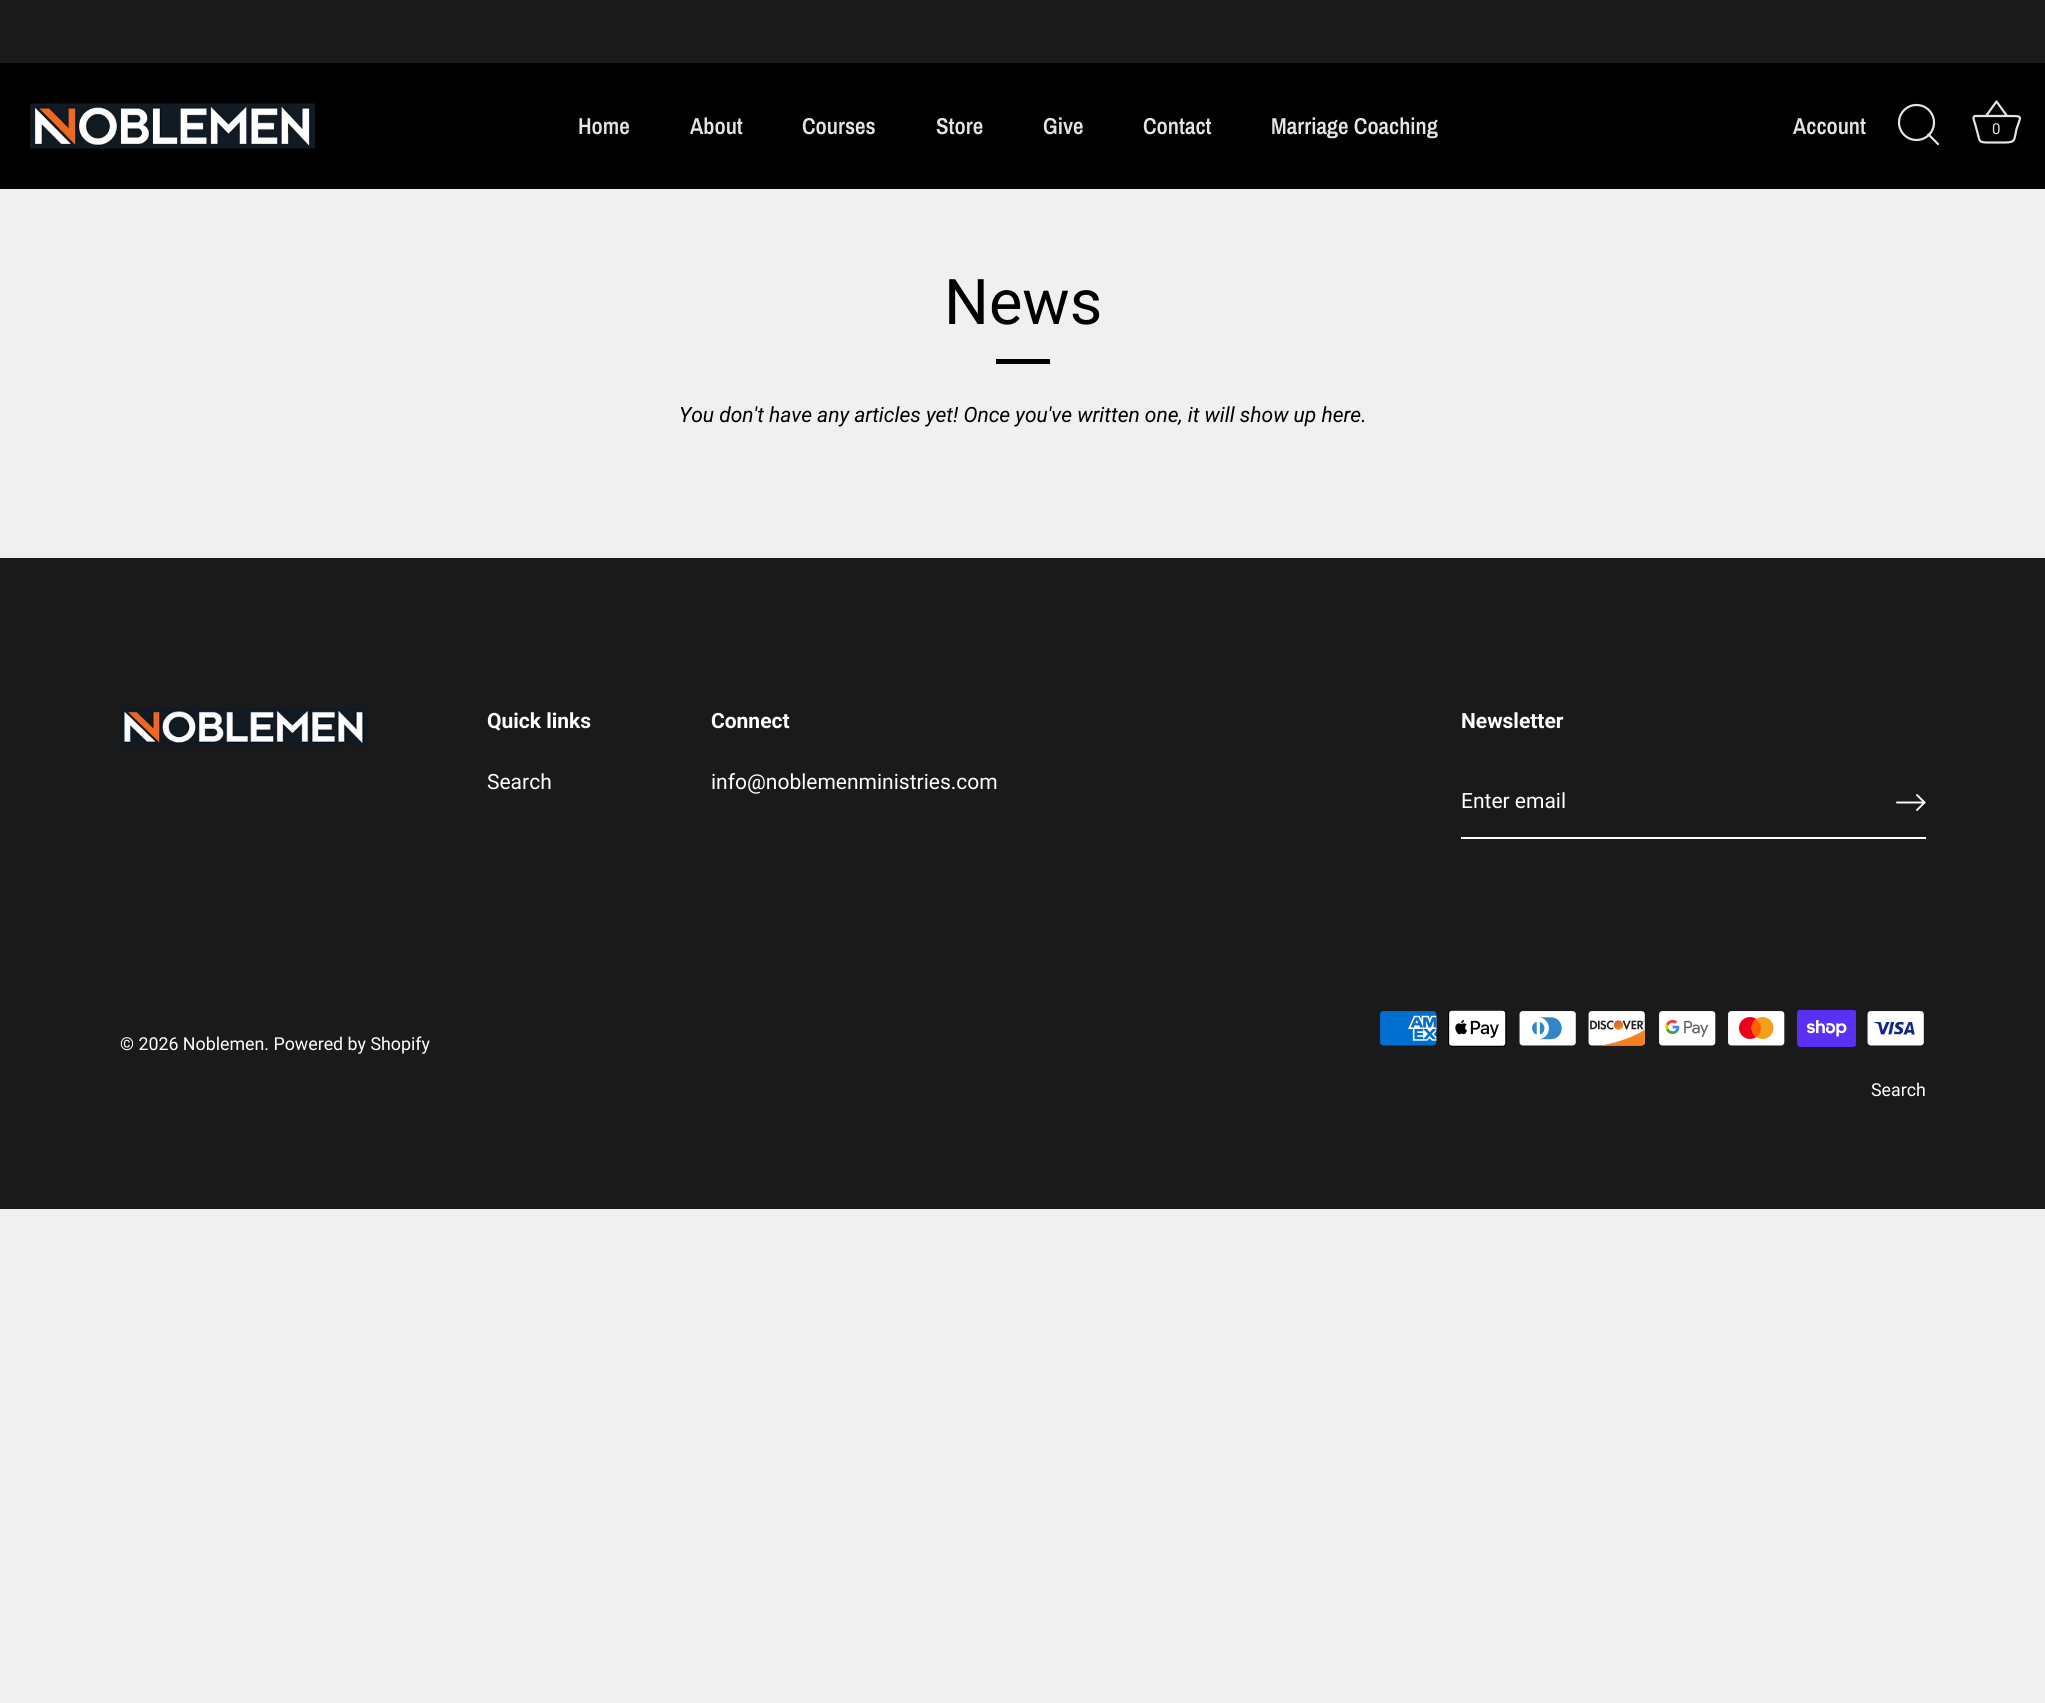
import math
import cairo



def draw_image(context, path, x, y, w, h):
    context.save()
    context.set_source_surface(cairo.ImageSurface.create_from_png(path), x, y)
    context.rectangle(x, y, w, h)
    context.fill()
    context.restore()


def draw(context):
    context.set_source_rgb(240 / 255, 240 / 255, 240 / 255)
    context.paint()
    context.set_source_rgb(0, 0, 0)
    context.rectangle(0, 63, 2045, 126)
    context.fill()
    context.set_source_rgb(26 / 255, 26 / 255, 26 / 255)
    context.rectangle(0, 0, 2045, 63)
    context.fill()
    draw_image(context, "images/1.png", 30, 103, 285, 46)
    context.arc(1916.5, 122.5, 17.5, 0, 2 * math.pi)
    context.set_source_rgb(228 / 255, 228 / 255, 228 / 255)
    context.set_line_width(2.2)
    context.stroke()
    context.new_path()
    context.move_to(1938, 144)
    context.line_to(1928.5, 134.5)
    context.set_line_cap(cairo.LineCap.ROUND)
    context.set_line_join(cairo.LineJoin.ROUND)
    context.stroke()
    context.new_path()
    context.move_to(1975.5, 116)
    context.curve_to(1972, 116, 1974, 120.5, 1974.5, 122)
    context.line_to(1976.5, 129)
    context.curve_to(1980.5, 143, 1977.5, 142.5, 1992, 142.5)
    context.line_to(2005, 142.5)
    context.curve_to(2016, 142.5, 2014, 139.5, 2016.5, 129)
    context.curve_to(2020.5, 116.5, 2023.5, 116, 2010.5, 116)
    context.line_to(1975.5, 116)
    context.move_to(1986, 116)
    context.line_to(1996.5, 101.5)
    context.line_to(2007, 116)
    context.set_line_cap(cairo.LineCap.BUTT)
    context.stroke()
    context.set_source_rgb(0, 0, 0)
    context.rectangle(996, 359, 54, 5)
    context.fill()
    context.set_source_rgb(26 / 255, 26 / 255, 26 / 255)
    context.rectangle(0, 558, 2045, 651)
    context.fill()
    draw_image(context, "images/2.png", 120, 708, 248, 38)
    context.set_source_rgb(1, 1, 1)
    context.rectangle(1461, 837, 465, 2)
    context.fill()
    context.new_path()
    context.move_to(1917, 810)
    context.line_to(1924.5, 802.5)
    context.line_to(1917, 795)
    context.set_line_width(1.9)
    context.set_line_cap(cairo.LineCap.ROUND)
    context.set_line_join(cairo.LineJoin.MITER)
    context.stroke()
    context.new_path()
    context.move_to(1923.5, 802.5)
    context.line_to(1897, 802.5)
    context.set_line_join(cairo.LineJoin.ROUND)
    context.stroke()
    draw_image(context, "images/3.png", 1380, 1011, 57, 35)
    draw_image(context, "images/4.png", 1448, 1010, 59, 37)
    draw_image(context, "images/5.png", 1519, 1011, 57, 35)
    draw_image(context, "images/6.png", 1588, 1011, 57, 35)
    draw_image(context, "images/7.png", 1659, 1011, 57, 35)
    draw_image(context, "images/8.png", 1728, 1011, 57, 35)
    draw_image(context, "images/9.png", 1797, 1010, 59, 37)
    draw_image(context, "images/10.png", 1867, 1011, 57, 35)
    context.select_font_face("Archivo Narrow SemiBold")
    context.set_font_size(23)
    context.set_source_rgb(228 / 255, 228 / 255, 228 / 255)
    context.move_to(578, 134)
    context.show_text("Home")
    context.move_to(690, 134)
    context.show_text("About")
    context.move_to(802, 134)
    context.show_text("Courses")
    context.move_to(936, 134)
    context.show_text("Store")
    context.move_to(1043, 134)
    context.show_text("Give")
    context.move_to(1143, 134)
    context.show_text("Contact")
    context.move_to(1271, 134)
    context.show_text("Marriage Coaching")
    context.move_to(1793, 134)
    context.show_text("Account")
    context.select_font_face("Roboto")
    context.set_font_size(15)
    context.move_to(1992, 134)
    context.show_text("0")
    context.set_font_size(63)
    context.set_source_rgb(0, 0, 0)
    context.move_to(944, 324)
    context.show_text("News")
    context.select_font_face("Roboto", cairo.FontSlant.ITALIC)
    context.set_font_size(21)
    context.move_to(679, 422)
    context.show_text("You don't have any articles yet! Once you've written one, it will show up here.")
    context.select_font_face("Roboto", cairo.FontSlant.NORMAL, cairo.FontWeight.BOLD)
    context.set_source_rgb(1, 1, 1)
    context.move_to(487, 728)
    context.show_text("Quick links")
    context.select_font_face("Roboto")
    context.move_to(487, 789)
    context.show_text("Search")
    context.select_font_face("Roboto", cairo.FontSlant.NORMAL, cairo.FontWeight.BOLD)
    context.move_to(711, 728)
    context.show_text("Connect")
    context.select_font_face("Roboto")
    context.move_to(711, 789)
    context.show_text("info@noblemenministries.com")
    context.select_font_face("Roboto", cairo.FontSlant.NORMAL, cairo.FontWeight.BOLD)
    context.move_to(1461, 728)
    context.show_text("Newsletter")
    context.select_font_face("Roboto")
    context.move_to(1461, 808)
    context.show_text("Enter email")
    context.set_font_size(17.8)
    context.move_to(120, 1050)
    context.show_text("© 2026 Noblemen. Powered by Shopify")
    context.move_to(1871, 1096)
    context.show_text("Search")


surface = cairo.ImageSurface(cairo.Format.RGB24, 2045, 1703)
context = cairo.Context(surface)
options = cairo.FontOptions()
options.set_hint_metrics(cairo.HintMetrics.OFF)
options.set_hint_style(cairo.HintStyle.NONE)
context.set_font_options(options)
context.set_miter_limit(4)
draw(context)
surface.write_to_png("out.png")
